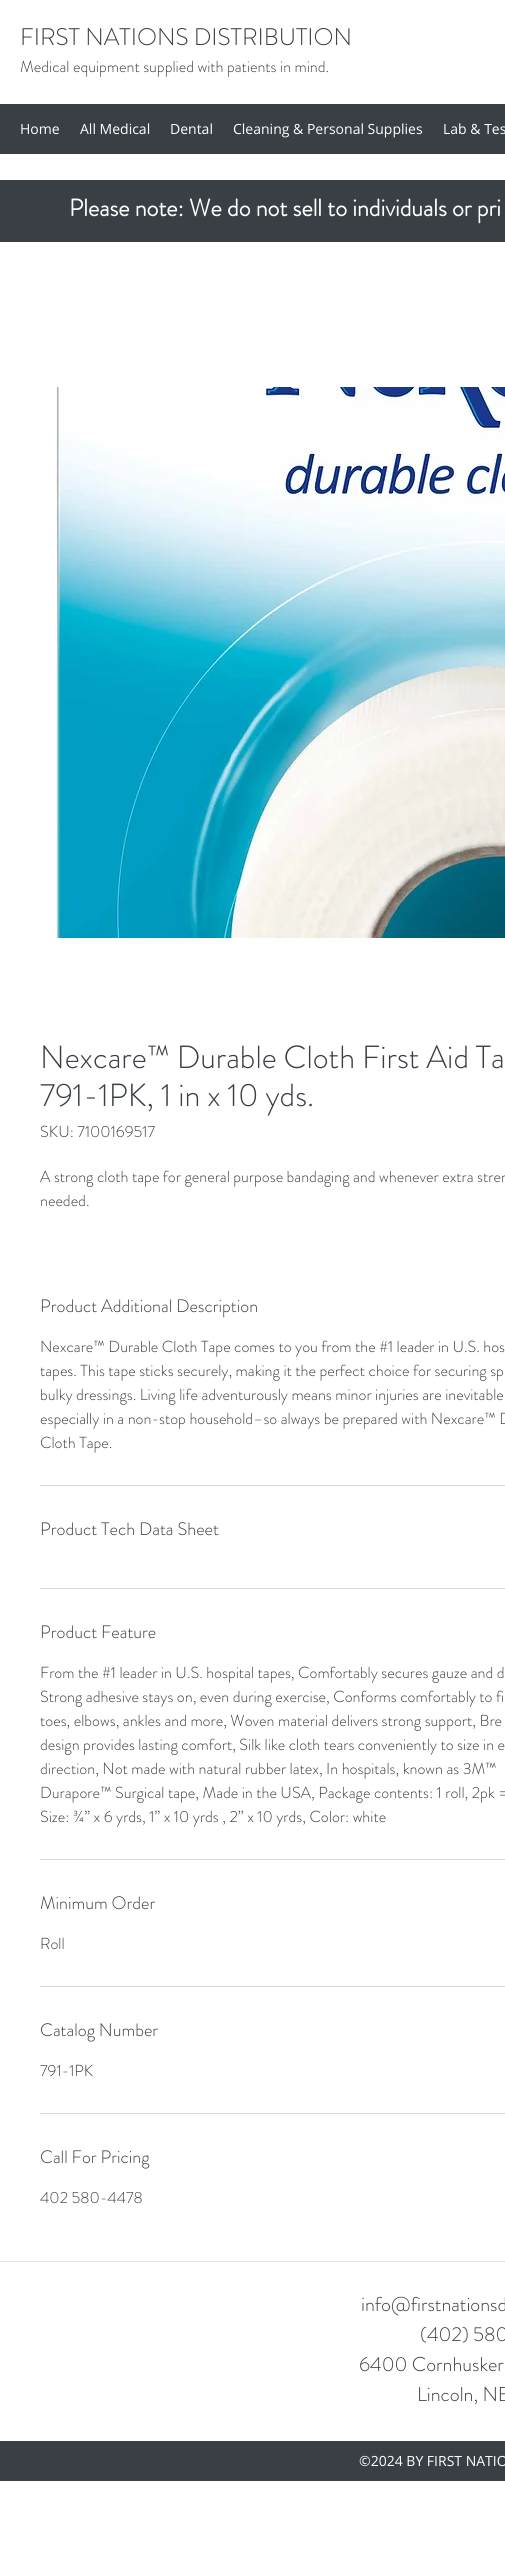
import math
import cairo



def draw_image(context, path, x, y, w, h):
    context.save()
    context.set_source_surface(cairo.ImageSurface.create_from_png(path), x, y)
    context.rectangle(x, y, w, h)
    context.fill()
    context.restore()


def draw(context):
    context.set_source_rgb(1, 1, 1)
    context.paint()
    context.set_source_rgb(57 / 255, 63 / 255, 68 / 255)
    context.rectangle(0, 104, 505, 50)
    context.fill()
    context.rectangle(0, 180, 505, 62)
    context.fill()
    draw_image(context, "images/1.png", 56, 387, 449, 551)
    context.set_source_rgb(215 / 255, 217 / 255, 218 / 255)
    context.rectangle(40, 1485, 465, 1)
    context.fill()
    context.rectangle(40, 1588, 465, 1)
    context.fill()
    context.rectangle(40, 1859, 465, 1)
    context.fill()
    context.rectangle(40, 1986, 465, 1)
    context.fill()
    context.rectangle(40, 2113, 465, 1)
    context.fill()
    context.set_source_rgb(225 / 255, 226 / 255, 227 / 255)
    context.rectangle(0, 2261, 505, 1)
    context.fill()
    context.set_source_rgb(57 / 255, 63 / 255, 68 / 255)
    context.rectangle(0, 2441, 505, 40)
    context.fill()
    context.select_font_face("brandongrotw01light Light")
    context.set_font_size(24)
    context.move_to(20, 45)
    context.show_text("FIRST NATIONS DISTRIBUTION")
    context.set_font_size(16)
    context.move_to(20, 72)
    context.show_text("Medical equipment supplied with patients in mind.")
    context.select_font_face("Open Sans")
    context.set_font_size(14)
    context.set_source_rgb(1, 1, 1)
    context.move_to(20, 134)
    context.show_text("Home")
    context.move_to(80, 134)
    context.show_text("All Medical")
    context.move_to(170, 134)
    context.show_text("Dental")
    context.move_to(233, 134)
    context.show_text("Cleaning & Personal Supplies")
    context.move_to(443, 134)
    context.show_text("Lab & Tes")
    context.select_font_face("brandongrotw01light", cairo.FontSlant.NORMAL, cairo.FontWeight.BOLD)
    context.set_font_size(24)
    context.move_to(69, 216)
    context.show_text("Please note: We do not sell to individuals or pri")
    context.select_font_face("brandongrotw01light Light")
    context.set_font_size(32)
    context.set_source_rgb(57 / 255, 63 / 255, 68 / 255)
    context.move_to(40, 1068)
    context.show_text("Nexcare™ Durable Cloth First Aid Ta")
    context.move_to(40, 1106)
    context.show_text("791-1PK, 1 in x 10 yds.")
    context.set_font_size(16)
    context.move_to(40, 1137)
    context.show_text("SKU: 7100169517")
    context.move_to(40, 1182)
    context.show_text("A strong cloth tape for general purpose bandaging and whenever extra stren")
    context.move_to(40, 1206)
    context.show_text("needed.")
    context.set_font_size(18)
    context.move_to(40, 1312)
    context.show_text("Product Additional Description")
    context.set_font_size(16)
    context.move_to(40, 1352)
    context.show_text("Nexcare™ Durable Cloth Tape comes to you from the #1 leader in U.S. hos")
    context.move_to(40, 1376)
    context.show_text("tapes. This tape sticks securely, making it the perfect choice for securing sp")
    context.move_to(40, 1400)
    context.show_text("bulky dressings. Living life adventurously means minor injuries are inevitable")
    context.move_to(40, 1424)
    context.show_text("especially in a non-stop household–so always be prepared with Nexcare™ D")
    context.move_to(40, 1448)
    context.show_text("Cloth Tape.")
    context.set_font_size(18)
    context.move_to(40, 1535)
    context.show_text("Product Tech Data Sheet")
    context.move_to(40, 1638)
    context.show_text("Product Feature")
    context.set_font_size(16)
    context.move_to(40, 1678)
    context.show_text("From the #1 leader in U.S. hospital tapes, Comfortably secures gauze and d")
    context.move_to(40, 1702)
    context.show_text("Strong adhesive stays on, even during exercise, Conforms comfortably to fi")
    context.move_to(40, 1726)
    context.show_text("toes, elbows, ankles and more, Woven material delivers strong support, Bre")
    context.move_to(40, 1750)
    context.show_text("design provides lasting comfort, Silk like cloth tears conveniently to size in e")
    context.move_to(40, 1774)
    context.show_text("direction, Not made with natural rubber latex, In hospitals, known as 3M™")
    context.move_to(40, 1798)
    context.show_text("Durapore™ Surgical tape, Made in the USA, Package contents: 1 roll, 2pk =")
    context.move_to(40, 1822)
    context.show_text("Size: ¾” x 6 yrds, 1” x 10 yrds , 2” x 10 yrds, Color: white")
    context.set_font_size(18)
    context.move_to(40, 1909)
    context.show_text("Minimum Order")
    context.set_font_size(16)
    context.move_to(40, 1949)
    context.show_text("Roll")
    context.set_font_size(18)
    context.move_to(40, 2036)
    context.show_text("Catalog Number")
    context.set_font_size(16)
    context.move_to(40, 2076)
    context.show_text("791-1PK")
    context.set_font_size(18)
    context.move_to(40, 2163)
    context.show_text("Call For Pricing")
    context.set_font_size(16)
    context.move_to(40, 2203)
    context.show_text("402 580-4478")
    context.set_font_size(20)
    context.move_to(361, 2311)
    context.show_text("info@firstnationsd")
    context.move_to(420, 2341)
    context.show_text("(402) 580")
    context.move_to(359, 2371)
    context.show_text("6400 Cornhusker")
    context.move_to(417, 2401)
    context.show_text("Lincoln, NE")
    context.select_font_face("Open Sans")
    context.set_font_size(14)
    context.set_source_rgb(1, 1, 1)
    context.move_to(359, 2466)
    context.show_text("©2024 BY FIRST NATIO")


surface = cairo.ImageSurface(cairo.Format.RGB24, 505, 2566)
context = cairo.Context(surface)
options = cairo.FontOptions()
options.set_hint_metrics(cairo.HintMetrics.OFF)
options.set_hint_style(cairo.HintStyle.NONE)
context.set_font_options(options)
context.set_miter_limit(4)
draw(context)
surface.write_to_png("out.png")
